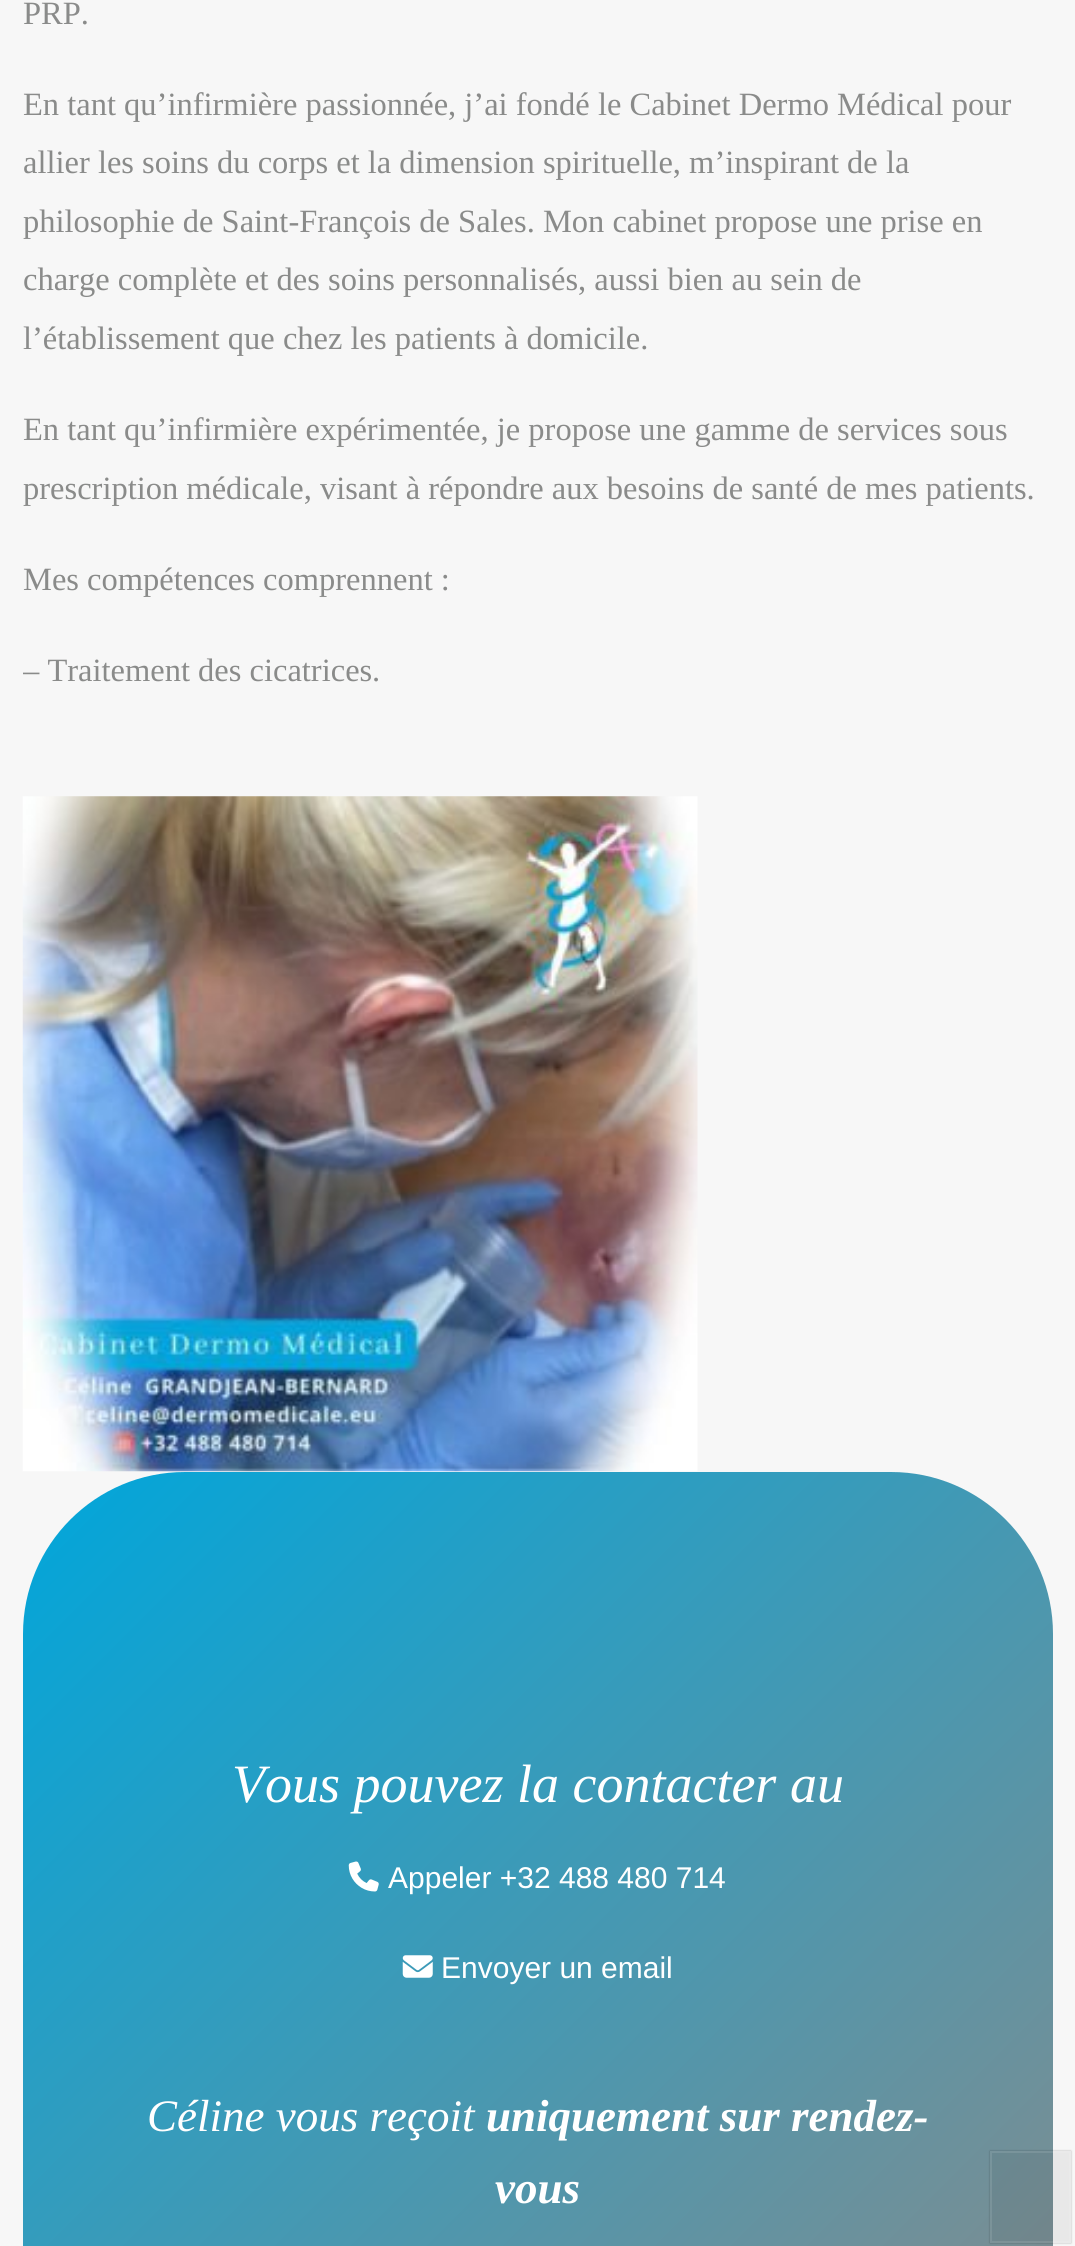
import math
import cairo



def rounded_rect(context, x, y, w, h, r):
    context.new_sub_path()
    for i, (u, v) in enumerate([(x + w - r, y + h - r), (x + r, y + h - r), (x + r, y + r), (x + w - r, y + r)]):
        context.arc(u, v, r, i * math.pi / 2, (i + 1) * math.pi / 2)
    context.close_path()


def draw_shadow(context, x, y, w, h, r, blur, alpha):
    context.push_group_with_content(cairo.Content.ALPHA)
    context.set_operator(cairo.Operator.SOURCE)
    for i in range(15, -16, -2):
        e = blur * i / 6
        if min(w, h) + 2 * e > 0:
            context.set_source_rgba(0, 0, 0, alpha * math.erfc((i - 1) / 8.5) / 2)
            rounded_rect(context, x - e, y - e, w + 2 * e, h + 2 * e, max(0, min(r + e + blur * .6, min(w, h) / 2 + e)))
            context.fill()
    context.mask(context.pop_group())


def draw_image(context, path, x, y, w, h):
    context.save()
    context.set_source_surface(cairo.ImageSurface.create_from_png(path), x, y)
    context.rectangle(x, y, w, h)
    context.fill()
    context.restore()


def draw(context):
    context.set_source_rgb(247 / 255, 247 / 255, 247 / 255)
    context.paint()
    context.set_source_rgb(232 / 255, 232 / 255, 232 / 255)
    context.rectangle(1053, 2151, 18, 92)
    context.fill()
    draw_image(context, "images/1.png", 22, 796, 676, 676)
    gradient = cairo.LinearGradient(25, 1469, 1051, 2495)
    gradient.add_color_stop_rgba(0, 0, 166 / 255, 219 / 255, 1)
    gradient.add_color_stop_rgba(1, 138 / 255, 139 / 255, 138 / 255, 1)
    context.set_source(gradient)
    rounded_rect(context, 23, 1472, 1030, 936, 162)
    context.fill()
    gradient = cairo.LinearGradient(25, 1469, 1051, 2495)
    gradient.add_color_stop_rgba(0, 0, 156 / 255, 206 / 255, 1)
    gradient.add_color_stop_rgba(1, 130 / 255, 131 / 255, 130 / 255, 1)
    context.set_source(gradient)
    context.rectangle(990, 2151, 63, 92)
    context.fill()
    draw_image(context, "images/2.png", 348, 1861, 31, 31)
    draw_image(context, "images/3.png", 402, 1955, 31, 23)
    context.save()
    context.set_fill_rule(cairo.FillRule.EVEN_ODD)
    context.new_path()
    context.move_to(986, 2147)
    context.line_to(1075, 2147)
    context.line_to(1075, 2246)
    context.line_to(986, 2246)
    context.close_path()
    context.move_to(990, 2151)
    context.line_to(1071, 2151)
    context.line_to(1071, 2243)
    context.line_to(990, 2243)
    context.close_path()
    context.clip()
    context.set_source_rgb(0, 0, 0)
    draw_shadow(context, 990, 2151, 81, 92, 0, 1, 0.28)
    context.restore()
    context.rectangle(991, 2152, 79, 90)
    context.set_source_rgba(1, 1, 1, 0.1)
    context.stroke()
    context.select_font_face("Liberation Serif")
    context.set_font_size(32.5)
    context.set_source_rgb(138 / 255, 139 / 255, 138 / 255)
    context.move_to(23, 24)
    context.show_text("PRP.")
    context.move_to(23, 115)
    context.show_text("En tant qu’infirmière passionnée, j’ai fondé le Cabinet Dermo Médical pour")
    context.move_to(23, 173)
    context.show_text("allier les soins du corps et la dimension spirituelle, m’inspirant de la")
    context.move_to(23, 232)
    context.show_text("philosophie de Saint-François de Sales. Mon cabinet propose une prise en")
    context.move_to(23, 290)
    context.show_text("charge complète et des soins personnalisés, aussi bien au sein de")
    context.move_to(23, 349)
    context.show_text("l’établissement que chez les patients à domicile.")
    context.move_to(23, 440)
    context.show_text("En tant qu’infirmière expérimentée, je propose une gamme de services sous")
    context.move_to(23, 499)
    context.show_text("prescription médicale, visant à répondre aux besoins de santé de mes patients.")
    context.move_to(23, 590)
    context.show_text("Mes compétences comprennent :")
    context.save()
    context.rectangle(23, 0, 1030, 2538)
    context.clip()
    context.move_to(23, 681)
    context.show_text("– Traitement des cicatrices")
    context.restore()
    context.move_to(372, 681)
    context.show_text(".")
    context.select_font_face("Liberation Serif", cairo.FontSlant.ITALIC)
    context.set_font_size(54)
    context.set_source_rgb(1, 1, 1)
    context.move_to(232, 1802)
    context.show_text("Vous pouvez la contacter au")
    context.select_font_face("Liberation Sans")
    context.set_font_size(30)
    context.move_to(388, 1888)
    context.show_text("Appeler +32 488 480 714")
    context.move_to(441, 1978)
    context.show_text("Envoyer un email")
    context.select_font_face("Liberation Serif", cairo.FontSlant.ITALIC)
    context.set_font_size(45)
    context.move_to(147, 2131)
    context.show_text("Céline vous reçoit")
    context.select_font_face("Liberation Serif", cairo.FontSlant.ITALIC, cairo.FontWeight.BOLD)
    context.move_to(486, 2131)
    context.show_text("uniquement sur rendez-")
    context.move_to(495, 2203)
    context.show_text("vous")


surface = cairo.ImageSurface(cairo.Format.RGB24, 1075, 2246)
context = cairo.Context(surface)
options = cairo.FontOptions()
options.set_hint_metrics(cairo.HintMetrics.OFF)
options.set_hint_style(cairo.HintStyle.NONE)
context.set_font_options(options)
context.set_miter_limit(4)
draw(context)
surface.write_to_png("out.png")
